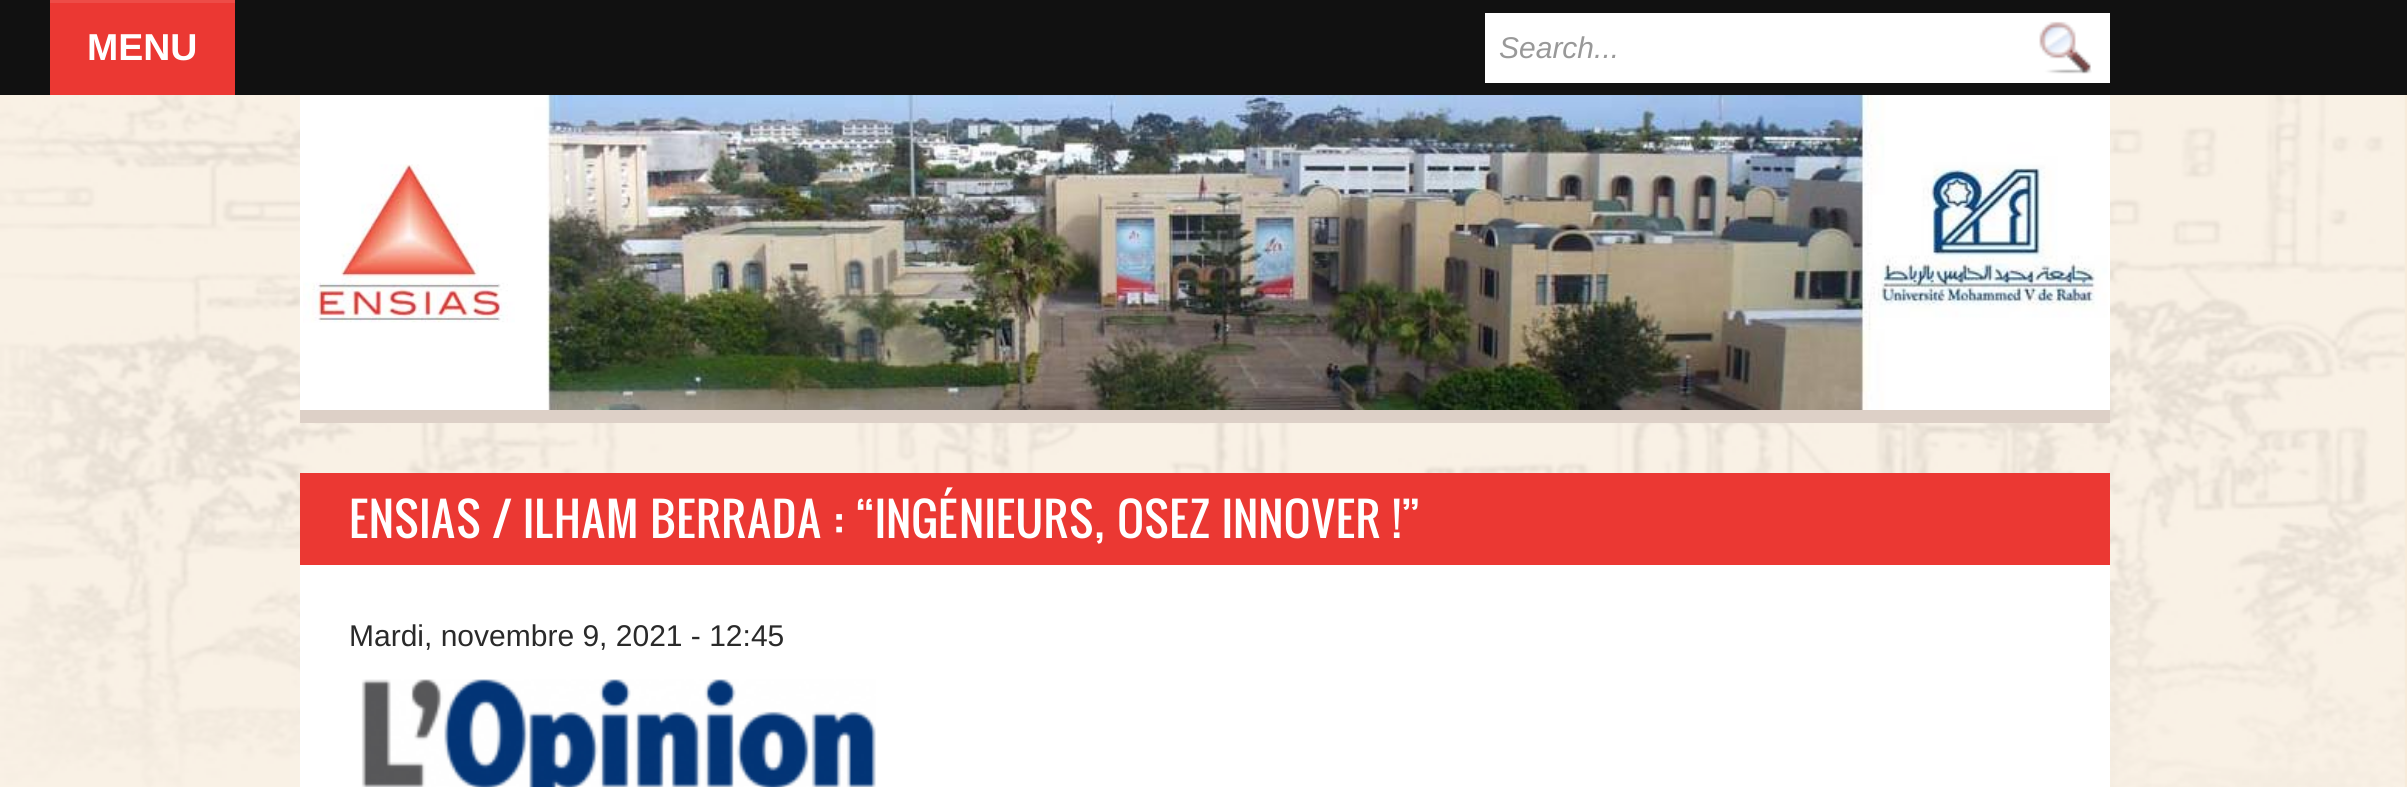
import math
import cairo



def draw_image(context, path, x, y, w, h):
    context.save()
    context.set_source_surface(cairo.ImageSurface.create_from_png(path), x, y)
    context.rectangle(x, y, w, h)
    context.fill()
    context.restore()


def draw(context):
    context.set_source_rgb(247 / 255, 235 / 255, 218 / 255)
    context.paint()
    draw_image(context, "images/1.png", 0, 95, 2405, 692)
    context.set_source_rgba(1, 1, 1, 0.07)
    context.rectangle(160, 95, 3, 3)
    context.fill()
    context.set_source_rgb(17 / 255, 17 / 255, 17 / 255)
    context.rectangle(0, 0, 2407, 95)
    context.fill()
    context.set_source_rgb(235 / 255, 56 / 255, 51 / 255)
    context.rectangle(50, 3, 185, 92)
    context.fill()
    context.set_source_rgb(237 / 255, 76 / 255, 71 / 255)
    context.rectangle(50, 0, 185, 3)
    context.fill()
    context.set_source_rgb(1, 1, 1)
    context.rectangle(1485, 13, 625, 70)
    context.fill()
    draw_image(context, "images/2.png", 2039, 21, 53, 53)
    context.set_source_rgb(221 / 255, 208 / 255, 199 / 255)
    context.rectangle(300, 410, 1810, 13)
    context.fill()
    draw_image(context, "images/3.png", 300, 95, 1810, 315)
    draw_image(context, "images/4.png", 303, 164, 212, 159)
    context.set_source_rgb(1, 1, 1)
    context.rectangle(300, 565, 1810, 222)
    context.fill()
    context.set_source_rgb(235 / 255, 56 / 255, 51 / 255)
    context.rectangle(300, 473, 1810, 92)
    context.fill()
    draw_image(context, "images/5.png", 361, 679, 515, 108)
    context.select_font_face("Liberation Sans", cairo.FontSlant.NORMAL, cairo.FontWeight.BOLD)
    context.set_font_size(37.5)
    context.set_source_rgb(1, 1, 1)
    context.move_to(87, 60)
    context.show_text("MENU")
    context.select_font_face("Liberation Sans", cairo.FontSlant.ITALIC)
    context.set_font_size(30)
    context.set_source_rgb(153 / 255, 153 / 255, 153 / 255)
    context.move_to(1499, 58)
    context.show_text("Search...")
    context.select_font_face("Oswald")
    context.set_font_size(45)
    context.set_source_rgb(1, 1, 1)
    context.move_to(349, 538)
    context.show_text("ENSIAS / ILHAM BERRADA : “INGÉNIEURS, OSEZ INNOVER !”")
    context.select_font_face("Liberation Sans")
    context.set_font_size(30)
    context.set_source_rgb(42 / 255, 42 / 255, 42 / 255)
    context.move_to(349, 646)
    context.show_text("Mardi, novembre 9, 2021 - 12:45")


surface = cairo.ImageSurface(cairo.Format.RGB24, 2407, 787)
context = cairo.Context(surface)
options = cairo.FontOptions()
options.set_hint_metrics(cairo.HintMetrics.OFF)
options.set_hint_style(cairo.HintStyle.NONE)
context.set_font_options(options)
context.set_miter_limit(4)
draw(context)
surface.write_to_png("out.png")
